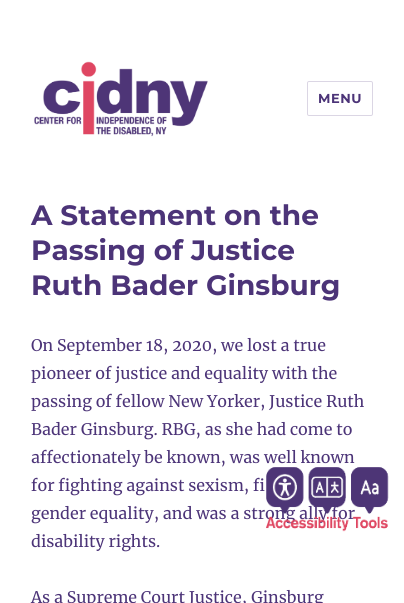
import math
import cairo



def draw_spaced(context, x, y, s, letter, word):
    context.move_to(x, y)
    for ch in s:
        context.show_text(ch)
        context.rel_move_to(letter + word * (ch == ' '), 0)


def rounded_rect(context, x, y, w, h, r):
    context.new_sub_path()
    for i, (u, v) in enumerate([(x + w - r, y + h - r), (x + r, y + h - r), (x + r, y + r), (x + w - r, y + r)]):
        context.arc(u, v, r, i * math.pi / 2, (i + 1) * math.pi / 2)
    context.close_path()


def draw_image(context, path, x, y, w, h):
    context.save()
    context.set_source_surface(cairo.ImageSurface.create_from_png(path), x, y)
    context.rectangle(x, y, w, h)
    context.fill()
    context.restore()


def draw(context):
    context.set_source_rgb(1, 1, 1)
    context.paint()
    draw_image(context, "images/1.png", 34, 61, 174, 76)
    rounded_rect(context, 307.5, 81.5, 65, 34, 1.5)
    context.set_source_rgb(219 / 255, 214 / 255, 228 / 255)
    context.set_line_width(1)
    context.stroke()
    context.select_font_face("Montserrat Thin")
    context.set_font_size(13)
    context.set_source_rgb(76 / 255, 52 / 255, 120 / 255)
    draw_spaced(context, 318, 103, "MENU", 0.5, 0)
    context.set_font_size(28)
    context.move_to(31, 225)
    context.show_text("A Statement on the")
    context.move_to(31, 260)
    context.show_text("Passing of Justice")
    context.move_to(31, 295)
    context.show_text("Ruth Bader Ginsburg")
    context.select_font_face("Merriweather")
    context.set_font_size(16)
    context.move_to(31, 351)
    context.show_text("On September 18, 2020, we lost a true")
    context.move_to(31, 379)
    context.show_text("pioneer of justice and equality with the")
    context.move_to(31, 407)
    context.show_text("passing of fellow New Yorker, Justice Ruth")
    context.move_to(31, 435)
    context.show_text("Bader Ginsburg. RBG, as she had come to")
    context.move_to(31, 463)
    context.show_text("affectionately be known, was well known")
    context.move_to(31, 491)
    context.show_text("for fighting against sexism, fi")
    context.move_to(31, 519)
    context.show_text("gender equality, and was a strong ally for")
    context.move_to(31, 547)
    context.show_text("disability rights.")
    context.move_to(31, 603)
    context.show_text("As a Supreme Court Justice, Ginsburg")
    draw_image(context, "images/2.png", 266, 467, 123, 65)


surface = cairo.ImageSurface(cairo.Format.RGB24, 404, 603)
context = cairo.Context(surface)
options = cairo.FontOptions()
options.set_hint_metrics(cairo.HintMetrics.OFF)
options.set_hint_style(cairo.HintStyle.NONE)
context.set_font_options(options)
context.set_miter_limit(4)
draw(context)
surface.write_to_png("out.png")
